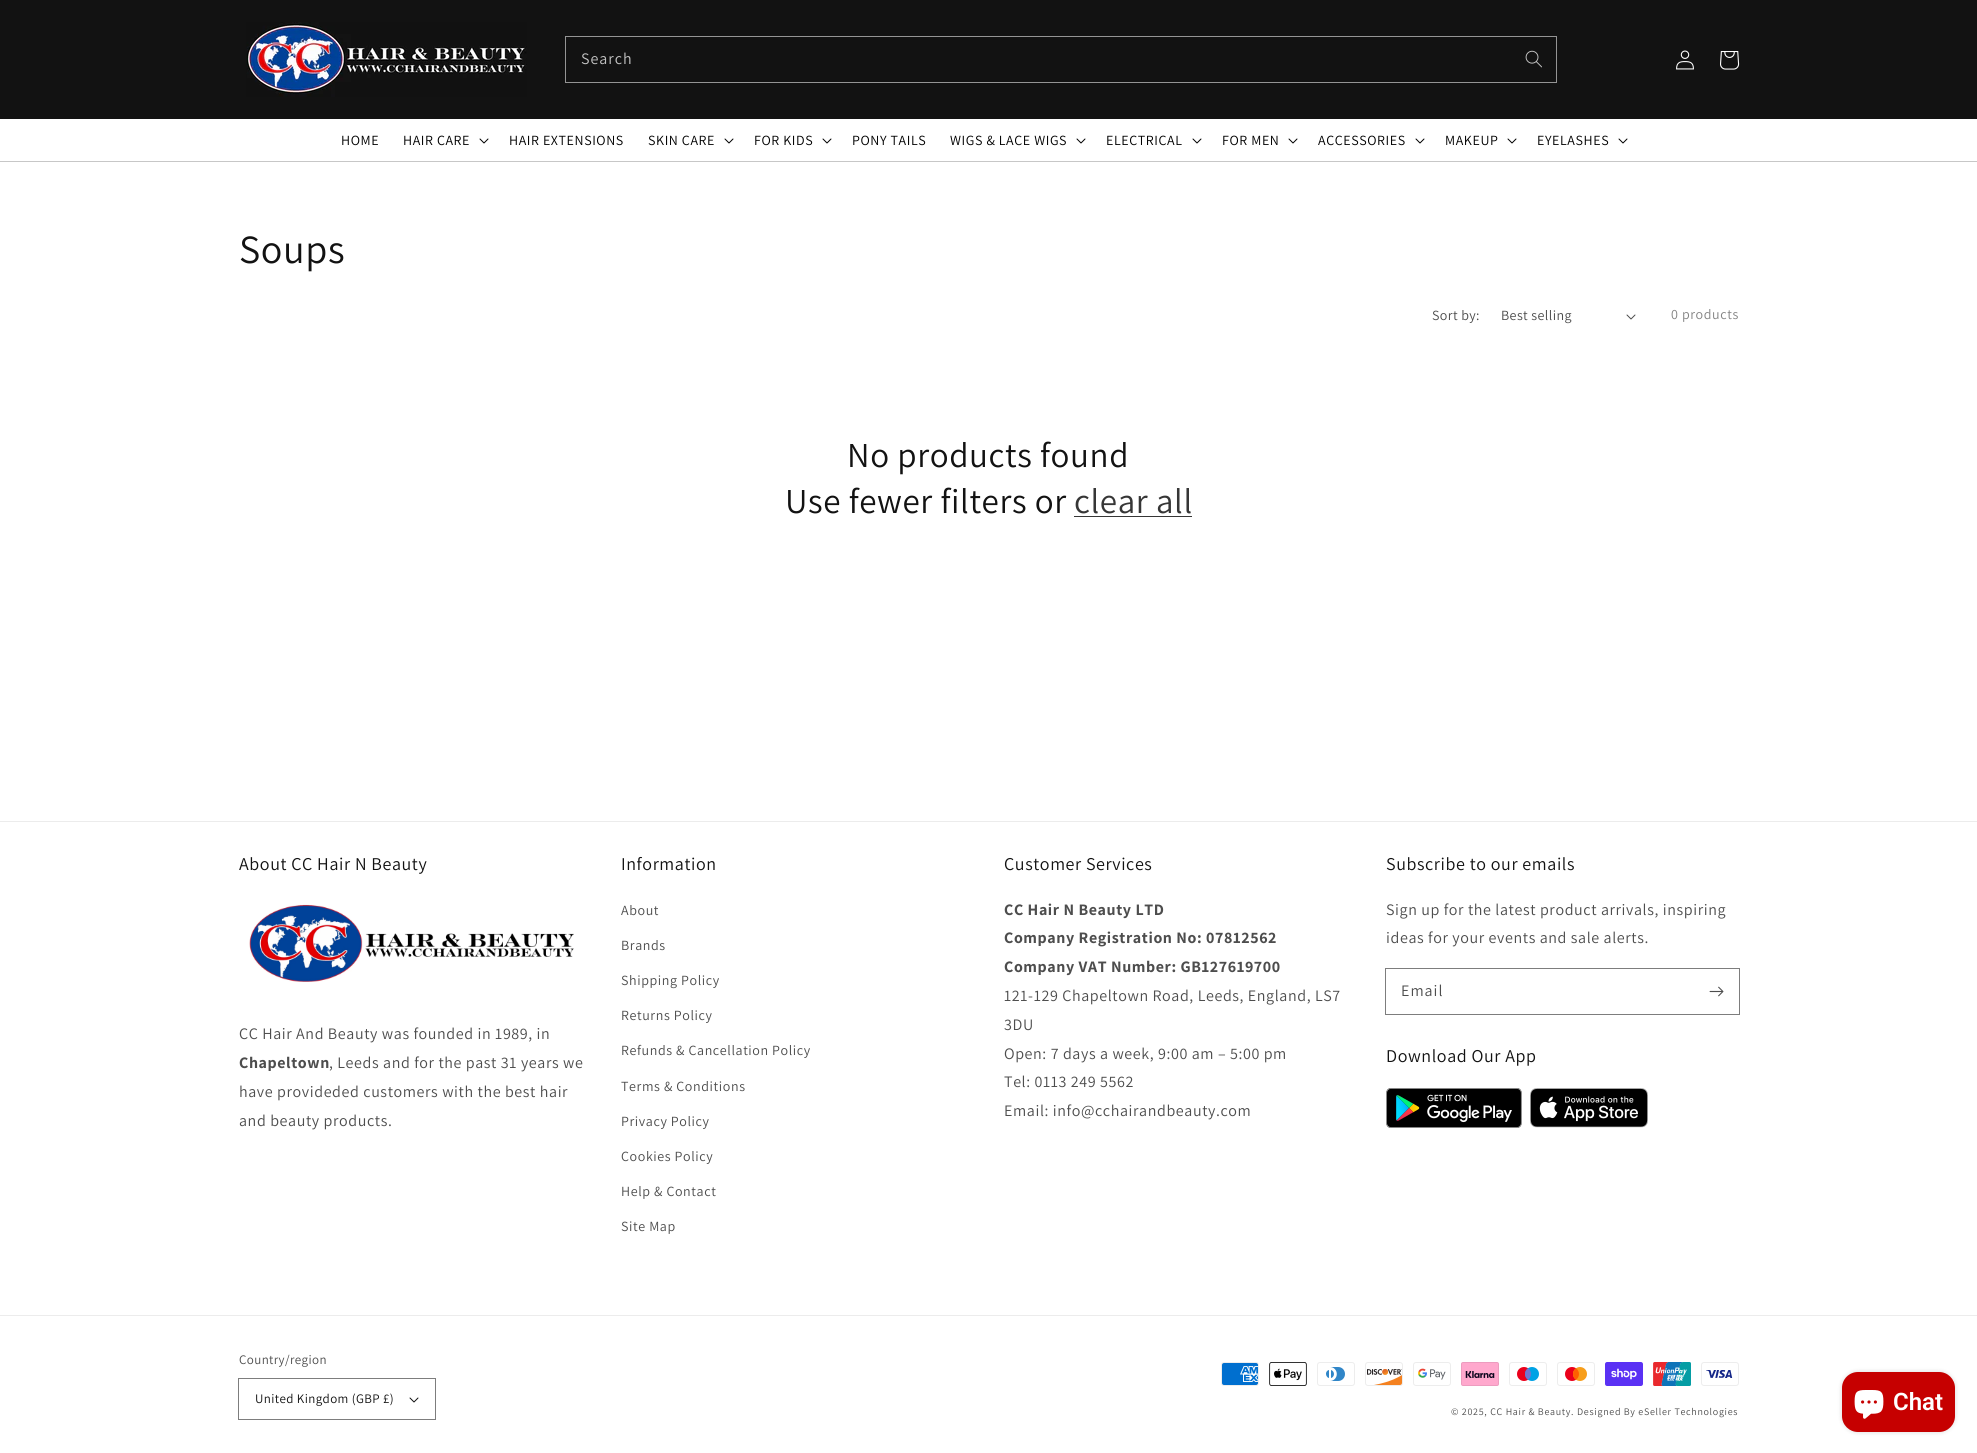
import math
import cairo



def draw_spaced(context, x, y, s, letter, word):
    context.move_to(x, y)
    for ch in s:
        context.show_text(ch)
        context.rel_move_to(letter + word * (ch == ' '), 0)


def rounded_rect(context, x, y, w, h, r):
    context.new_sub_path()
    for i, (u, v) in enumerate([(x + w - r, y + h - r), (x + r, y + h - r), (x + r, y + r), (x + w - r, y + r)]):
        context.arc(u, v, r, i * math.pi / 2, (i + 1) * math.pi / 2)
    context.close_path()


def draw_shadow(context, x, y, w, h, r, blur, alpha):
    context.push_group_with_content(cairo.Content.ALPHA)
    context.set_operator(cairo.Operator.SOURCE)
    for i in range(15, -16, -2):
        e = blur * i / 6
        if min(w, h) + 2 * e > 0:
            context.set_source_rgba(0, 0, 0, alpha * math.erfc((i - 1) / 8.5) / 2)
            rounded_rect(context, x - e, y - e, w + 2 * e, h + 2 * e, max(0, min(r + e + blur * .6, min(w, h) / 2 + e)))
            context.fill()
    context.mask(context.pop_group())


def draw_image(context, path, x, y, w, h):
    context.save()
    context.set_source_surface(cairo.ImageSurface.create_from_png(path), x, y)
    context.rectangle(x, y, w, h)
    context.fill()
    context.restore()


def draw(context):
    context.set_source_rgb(1, 1, 1)
    context.paint()
    context.set_source_rgb(18 / 255, 18 / 255, 18 / 255)
    context.rectangle(0, 0, 1977, 119)
    context.fill()
    draw_image(context, "images/1.png", 246, 22, 281, 75)
    context.rectangle(565.5, 36.5, 991, 46)
    context.set_source_rgb(148 / 255, 148 / 255, 148 / 255)
    context.set_line_width(1)
    context.stroke()
    draw_image(context, "images/2.png", 1525, 50, 17, 18)
    draw_image(context, "images/3.png", 1676, 50, 18, 20)
    draw_image(context, "images/4.png", 1720, 51, 20, 19)
    context.set_source_rgb(199 / 255, 199 / 255, 199 / 255)
    context.rectangle(0, 161, 1977, 1)
    context.fill()
    draw_image(context, "images/5.png", 479, 138, 10, 6)
    draw_image(context, "images/5.png", 724, 138, 10, 6)
    draw_image(context, "images/5.png", 822, 138, 10, 6)
    draw_image(context, "images/5.png", 1076, 138, 10, 6)
    draw_image(context, "images/5.png", 1192, 138, 10, 6)
    draw_image(context, "images/5.png", 1288, 138, 10, 6)
    draw_image(context, "images/5.png", 1415, 138, 10, 6)
    draw_image(context, "images/5.png", 1507, 138, 10, 6)
    draw_image(context, "images/5.png", 1618, 138, 10, 6)
    draw_image(context, "images/6.png", 1626, 314, 10, 6)
    context.set_source_rgb(54 / 255, 54 / 255, 54 / 255)
    context.rectangle(1074, 516, 118, 1)
    context.fill()
    context.set_source_rgb(236 / 255, 236 / 255, 236 / 255)
    context.rectangle(0, 821, 1977, 1)
    context.fill()
    draw_image(context, "images/7.png", 249, 904, 325, 78)
    context.rectangle(1385.5, 968.5, 354, 46)
    context.set_source_rgb(125 / 255, 125 / 255, 125 / 255)
    context.stroke()
    draw_image(context, "images/8.png", 1709, 986, 15, 11)
    draw_image(context, "images/9.png", 1386, 1088, 136, 40)
    draw_image(context, "images/10.png", 1530, 1088, 118, 40)
    context.set_source_rgb(236 / 255, 236 / 255, 236 / 255)
    context.rectangle(0, 1315, 1977, 1)
    context.fill()
    context.rectangle(238.5, 1378.5, 197, 41)
    context.set_source_rgb(125 / 255, 125 / 255, 125 / 255)
    context.stroke()
    draw_image(context, "images/11.png", 409, 1397, 10, 6)
    draw_image(context, "images/12.png", 1221, 1362, 38, 24)
    draw_image(context, "images/13.png", 1269, 1362, 38, 24)
    draw_image(context, "images/14.png", 1317, 1362, 38, 24)
    draw_image(context, "images/15.png", 1365, 1362, 38, 24)
    draw_image(context, "images/16.png", 1413, 1362, 38, 24)
    draw_image(context, "images/17.png", 1461, 1362, 38, 24)
    draw_image(context, "images/18.png", 1509, 1362, 38, 24)
    draw_image(context, "images/19.png", 1557, 1362, 38, 24)
    draw_image(context, "images/20.png", 1605, 1362, 38, 24)
    draw_image(context, "images/21.png", 1653, 1362, 38, 24)
    draw_image(context, "images/22.png", 1701, 1362, 38, 24)
    context.set_source_rgb(0, 0, 0)
    draw_shadow(context, 1842, 1372, 113, 60, 16, 2.5, 0.15)
    context.set_source_rgb(198 / 255, 0, 0)
    rounded_rect(context, 1842, 1372, 113, 60, 16)
    context.fill()
    draw_image(context, "images/23.png", 1854, 1390, 30, 29)
    context.select_font_face("Assistant")
    context.set_font_size(16)
    context.set_source_rgb(196 / 255, 196 / 255, 196 / 255)
    draw_spaced(context, 581, 64, "Search", 1, 0)
    context.set_font_size(14)
    context.set_source_rgb(0, 0, 0)
    draw_spaced(context, 341, 145, "HOME", 0.6, 0)
    draw_spaced(context, 403, 145, "HAIR CARE", 0.6, 0)
    draw_spaced(context, 509, 145, "HAIR EXTENSIONS", 0.6, 0)
    draw_spaced(context, 648, 145, "SKIN CARE", 0.6, 0)
    draw_spaced(context, 754, 145, "FOR KIDS", 0.6, 0)
    draw_spaced(context, 852, 145, "PONY TAILS", 0.6, 0)
    draw_spaced(context, 950, 145, "WIGS & LACE WIGS", 0.6, 0)
    draw_spaced(context, 1106, 145, "ELECTRICAL", 0.6, 0)
    draw_spaced(context, 1222, 145, "FOR MEN", 0.6, 0)
    draw_spaced(context, 1318, 145, "ACCESSORIES", 0.6, 0)
    draw_spaced(context, 1445, 145, "MAKEUP", 0.6, 0)
    draw_spaced(context, 1537, 145, "EYELASHES", 0.6, 0)
    context.set_font_size(40)
    context.set_source_rgb(18 / 255, 18 / 255, 18 / 255)
    draw_spaced(context, 239, 263, "Soups", 0.6, 0)
    context.set_font_size(14)
    context.set_source_rgb(77 / 255, 77 / 255, 77 / 255)
    draw_spaced(context, 1432, 320, "Sort by:", 0.4, 0)
    draw_spaced(context, 1501, 320, "Best selling", 0.4, 0)
    context.set_source_rgb(131 / 255, 131 / 255, 131 / 255)
    draw_spaced(context, 1671, 319, "0 products", 0.6, 0)
    context.set_font_size(35)
    context.set_source_rgb(18 / 255, 18 / 255, 18 / 255)
    draw_spaced(context, 847, 467, "No products found", 0.6, 0)
    draw_spaced(context, 785, 513, "Use fewer filters or", 0.6, 0)
    context.set_source_rgb(54 / 255, 54 / 255, 54 / 255)
    draw_spaced(context, 1074, 513, "clear all", 0.6, 0)
    context.set_font_size(18)
    context.set_source_rgb(18 / 255, 18 / 255, 18 / 255)
    draw_spaced(context, 239, 870, "About CC Hair N Beauty", 0.6, 0)
    context.set_font_size(16)
    context.set_source_rgb(77 / 255, 77 / 255, 77 / 255)
    draw_spaced(context, 239, 1039, "CC Hair And Beauty was founded in 1989, in", 0.6, 0)
    context.select_font_face("Assistant", cairo.FontSlant.NORMAL, cairo.FontWeight.BOLD)
    draw_spaced(context, 239, 1068, "Chapeltown", 0.6, 0)
    context.select_font_face("Assistant")
    draw_spaced(context, 329, 1068, ", Leeds and for the past 31 years we", 0.6, 0)
    draw_spaced(context, 239, 1097, "have provideded customers with the best hair", 0.6, 0)
    draw_spaced(context, 239, 1126, "and beauty products.", 0.6, 0)
    context.set_font_size(18)
    context.set_source_rgb(18 / 255, 18 / 255, 18 / 255)
    draw_spaced(context, 621, 870, "Information", 0.6, 0)
    context.set_font_size(14)
    context.set_source_rgb(77 / 255, 77 / 255, 77 / 255)
    draw_spaced(context, 621, 915, "About", 0.6, 0)
    draw_spaced(context, 621, 950, "Brands", 0.6, 0)
    draw_spaced(context, 621, 985, "Shipping Policy", 0.6, 0)
    draw_spaced(context, 621, 1020, "Returns Policy", 0.6, 0)
    draw_spaced(context, 621, 1055, "Refunds & Cancellation Policy", 0.6, 0)
    draw_spaced(context, 621, 1091, "Terms & Conditions", 0.6, 0)
    draw_spaced(context, 621, 1126, "Privacy Policy", 0.6, 0)
    draw_spaced(context, 621, 1161, "Cookies Policy", 0.6, 0)
    draw_spaced(context, 621, 1196, "Help & Contact", 0.6, 0)
    draw_spaced(context, 621, 1231, "Site Map", 0.6, 0)
    context.set_font_size(18)
    context.set_source_rgb(18 / 255, 18 / 255, 18 / 255)
    draw_spaced(context, 1004, 870, "Customer Services", 0.6, 0)
    context.select_font_face("Assistant", cairo.FontSlant.NORMAL, cairo.FontWeight.BOLD)
    context.set_font_size(16)
    context.set_source_rgb(77 / 255, 77 / 255, 77 / 255)
    draw_spaced(context, 1004, 915, "CC Hair N Beauty LTD", 0.6, 0)
    draw_spaced(context, 1004, 943, "Company Registration No: 07812562", 0.6, 0)
    draw_spaced(context, 1004, 972, "Company VAT Number: GB127619700", 0.6, 0)
    context.select_font_face("Assistant")
    draw_spaced(context, 1004, 1001, "121-129 Chapeltown Road, Leeds, England, LS7", 0.6, 0)
    draw_spaced(context, 1004, 1030, "3DU", 0.6, 0)
    draw_spaced(context, 1004, 1059, "Open: 7 days a week, 9:00 am – 5:00 pm", 0.6, 0)
    draw_spaced(context, 1004, 1087, "Tel: 0113 249 5562", 0.6, 0)
    draw_spaced(context, 1004, 1116, "Email: info@cchairandbeauty.com", 0.6, 0)
    context.set_font_size(18)
    context.set_source_rgb(18 / 255, 18 / 255, 18 / 255)
    draw_spaced(context, 1386, 870, "Subscribe to our emails", 0.6, 0)
    context.set_font_size(16)
    context.set_source_rgb(77 / 255, 77 / 255, 77 / 255)
    draw_spaced(context, 1386, 915, "Sign up for the latest product arrivals, inspiring", 0.6, 0)
    draw_spaced(context, 1386, 943, "ideas for your events and sale alerts.", 0.6, 0)
    draw_spaced(context, 1401, 996, "Email", 1, 0)
    context.set_font_size(18)
    context.set_source_rgb(18 / 255, 18 / 255, 18 / 255)
    draw_spaced(context, 1386, 1062, "Download Our App", 0.6, 0)
    context.set_font_size(13)
    context.set_source_rgb(77 / 255, 77 / 255, 77 / 255)
    draw_spaced(context, 239, 1364, "Country/region", 0.4, 0)
    context.set_source_rgb(18 / 255, 18 / 255, 18 / 255)
    draw_spaced(context, 255, 1403, "United Kingdom (GBP £)", 0.4, 0)
    context.set_font_size(10)
    context.set_source_rgb(77 / 255, 77 / 255, 77 / 255)
    draw_spaced(context, 1451, 1415, "© 2025, CC Hair & Beauty.", 0.7, 0)
    draw_spaced(context, 1577, 1415, "Designed By eSeller Technologies", 0.7, 0)
    context.select_font_face("Roboto SemiBold")
    context.set_font_size(24)
    context.set_source_rgb(1, 1, 1)
    context.move_to(1893, 1410)
    context.show_text("Chat")


surface = cairo.ImageSurface(cairo.Format.RGB24, 1977, 1453)
context = cairo.Context(surface)
options = cairo.FontOptions()
options.set_hint_metrics(cairo.HintMetrics.OFF)
options.set_hint_style(cairo.HintStyle.NONE)
context.set_font_options(options)
context.set_miter_limit(4)
draw(context)
surface.write_to_png("out.png")
